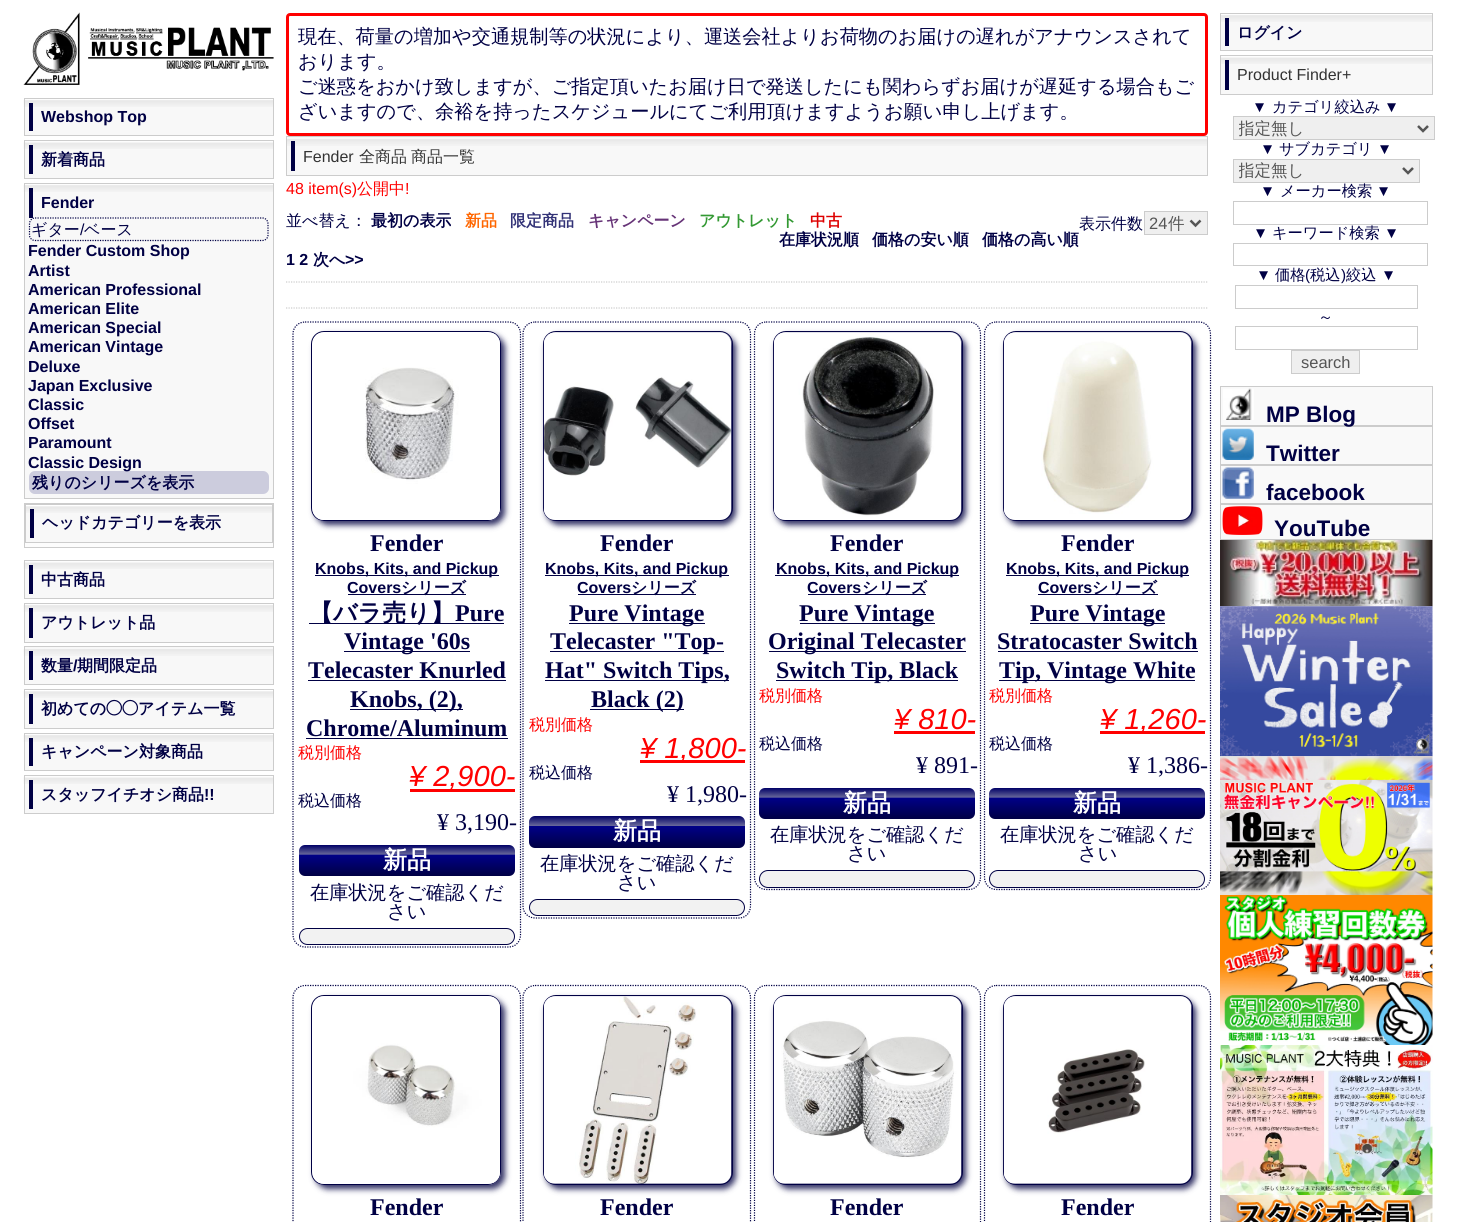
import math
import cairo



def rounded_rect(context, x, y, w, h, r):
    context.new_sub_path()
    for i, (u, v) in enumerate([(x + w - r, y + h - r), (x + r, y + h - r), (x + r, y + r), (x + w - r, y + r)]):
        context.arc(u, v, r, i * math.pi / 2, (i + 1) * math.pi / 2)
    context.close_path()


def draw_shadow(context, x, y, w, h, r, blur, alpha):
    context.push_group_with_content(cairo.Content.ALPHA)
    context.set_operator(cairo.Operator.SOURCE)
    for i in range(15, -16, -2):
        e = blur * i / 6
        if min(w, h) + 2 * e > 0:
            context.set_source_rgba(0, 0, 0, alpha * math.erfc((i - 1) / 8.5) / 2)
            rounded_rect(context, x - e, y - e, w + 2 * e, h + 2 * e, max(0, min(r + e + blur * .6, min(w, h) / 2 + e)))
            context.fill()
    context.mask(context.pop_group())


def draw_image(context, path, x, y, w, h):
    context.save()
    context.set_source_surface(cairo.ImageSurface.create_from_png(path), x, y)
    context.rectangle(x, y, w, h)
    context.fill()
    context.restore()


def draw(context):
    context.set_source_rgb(1, 1, 1)
    context.paint()
    draw_image(context, "images/1.png", 23, 12, 251, 73)
    context.set_source_rgb(248 / 255, 248 / 255, 248 / 255)
    context.rectangle(25, 107, 248, 28)
    context.fill()
    draw_image(context, "images/2.png", 23, 99, 250, 8)
    context.rectangle(24.5, 98.5, 249, 37)
    context.set_source_rgb(204 / 255, 204 / 255, 204 / 255)
    context.set_line_width(1)
    context.stroke()
    context.set_source_rgb(0, 0, 68 / 255)
    context.rectangle(29, 103, 4, 28)
    context.fill()
    context.set_source_rgb(248 / 255, 248 / 255, 248 / 255)
    context.rectangle(25, 141, 248, 37)
    context.fill()
    draw_image(context, "images/3.png", 23, 141, 250, 8)
    context.rectangle(24.5, 140.5, 249, 38)
    context.set_source_rgb(204 / 255, 204 / 255, 204 / 255)
    context.stroke()
    context.set_source_rgb(0, 0, 68 / 255)
    context.rectangle(29, 145, 4, 29)
    context.fill()
    context.set_source_rgb(248 / 255, 248 / 255, 248 / 255)
    context.rectangle(25, 192, 248, 306)
    context.fill()
    draw_image(context, "images/2.png", 23, 184, 250, 8)
    context.rectangle(24.5, 183.5, 249, 315)
    context.set_source_rgb(204 / 255, 204 / 255, 204 / 255)
    context.stroke()
    context.set_source_rgb(0, 0, 68 / 255)
    context.rectangle(29, 188, 4, 30)
    context.fill()
    context.new_path()
    context.move_to(35, 218)
    context.line_to(262.5, 218)
    context.curve_to(265.5, 218, 268, 220.5, 268, 224)
    context.line_to(268, 235)
    context.curve_to(268, 238, 265.5, 240.5, 262.5, 240.5)
    context.line_to(35, 240.5)
    context.curve_to(32, 240.5, 29.5, 238, 29.5, 235)
    context.line_to(29.5, 224)
    context.curve_to(29.5, 220.5, 32, 218, 35, 218)
    context.close_path()
    context.set_line_width(1.2)
    context.set_dash([1.25, 1.25])
    context.stroke()
    context.set_source_rgb(204 / 255, 204 / 255, 221 / 255)
    rounded_rect(context, 29, 471, 240, 23, 6)
    context.fill()
    context.set_source_rgb(252 / 255, 252 / 255, 252 / 255)
    context.rectangle(25, 543, 248, 4)
    context.fill()
    context.rectangle(24.5, 503.5, 249, 44)
    context.set_source_rgb(204 / 255, 204 / 255, 204 / 255)
    context.set_line_width(1)
    context.set_dash([])
    context.stroke()
    context.set_source_rgb(248 / 255, 248 / 255, 248 / 255)
    context.rectangle(26, 513, 246, 29)
    context.fill()
    draw_image(context, "images/4.png", 26, 505, 246, 8)
    context.rectangle(25.5, 504.5, 247, 38)
    context.set_source_rgb(204 / 255, 204 / 255, 204 / 255)
    context.stroke()
    context.set_source_rgb(0, 0, 68 / 255)
    context.rectangle(30, 509, 4, 29)
    context.fill()
    context.set_source_rgb(248 / 255, 248 / 255, 248 / 255)
    context.rectangle(25, 561, 248, 37)
    context.fill()
    draw_image(context, "images/3.png", 23, 561, 250, 8)
    context.rectangle(24.5, 560.5, 249, 38)
    context.set_source_rgb(204 / 255, 204 / 255, 204 / 255)
    context.stroke()
    context.set_source_rgb(0, 0, 68 / 255)
    context.rectangle(29, 565, 4, 29)
    context.fill()
    context.set_source_rgb(248 / 255, 248 / 255, 248 / 255)
    context.rectangle(25, 612, 248, 30)
    context.fill()
    draw_image(context, "images/2.png", 23, 604, 250, 8)
    context.rectangle(24.5, 603.5, 249, 39)
    context.set_source_rgb(204 / 255, 204 / 255, 204 / 255)
    context.stroke()
    context.set_source_rgb(0, 0, 68 / 255)
    context.rectangle(29, 608, 4, 30)
    context.fill()
    context.set_source_rgb(248 / 255, 248 / 255, 248 / 255)
    context.rectangle(25, 647, 248, 37)
    context.fill()
    draw_image(context, "images/5.png", 23, 649, 250, 7)
    context.rectangle(24.5, 646.5, 249, 38)
    context.set_source_rgb(204 / 255, 204 / 255, 204 / 255)
    context.stroke()
    context.set_source_rgb(0, 0, 68 / 255)
    context.rectangle(29, 651, 4, 29)
    context.fill()
    context.set_source_rgb(248 / 255, 248 / 255, 248 / 255)
    context.rectangle(25, 698, 248, 30)
    context.fill()
    draw_image(context, "images/6.png", 23, 690, 250, 8)
    context.rectangle(24.5, 689.5, 249, 39)
    context.set_source_rgb(204 / 255, 204 / 255, 204 / 255)
    context.stroke()
    context.set_source_rgb(0, 0, 68 / 255)
    context.rectangle(29, 694, 4, 30)
    context.fill()
    context.set_source_rgb(248 / 255, 248 / 255, 248 / 255)
    context.rectangle(25, 742, 248, 28)
    context.fill()
    draw_image(context, "images/2.png", 23, 734, 250, 8)
    context.rectangle(24.5, 733.5, 249, 37)
    context.set_source_rgb(204 / 255, 204 / 255, 204 / 255)
    context.stroke()
    context.set_source_rgb(0, 0, 68 / 255)
    context.rectangle(29, 738, 4, 28)
    context.fill()
    context.set_source_rgb(248 / 255, 248 / 255, 248 / 255)
    context.rectangle(25, 776, 248, 37)
    context.fill()
    draw_image(context, "images/3.png", 23, 776, 250, 8)
    context.rectangle(24.5, 775.5, 249, 38)
    context.set_source_rgb(204 / 255, 204 / 255, 204 / 255)
    context.stroke()
    context.set_source_rgb(0, 0, 68 / 255)
    context.rectangle(29, 780, 4, 29)
    context.fill()
    rounded_rect(context, 287.5, 14.5, 919, 120, 2.5)
    context.set_source_rgb(1, 0, 0)
    context.set_line_width(3)
    context.stroke()
    context.set_source_rgb(248 / 255, 248 / 255, 248 / 255)
    context.rectangle(287, 137, 920, 38)
    context.fill()
    draw_image(context, "images/7.png", 287, 139, 920, 7)
    context.rectangle(286.5, 136.5, 921, 39)
    context.set_source_rgb(204 / 255, 204 / 255, 204 / 255)
    context.set_line_width(1)
    context.stroke()
    context.set_source_rgb(0, 0, 68 / 255)
    context.rectangle(291, 141, 4, 30)
    context.fill()
    context.new_path()
    context.move_to(286, 308)
    context.line_to(1207.5, 308)
    context.set_source_rgb(204 / 255, 204 / 255, 204 / 255)
    context.set_line_width(1.2)
    context.set_dash([1.25, 1.25])
    context.stroke()
    context.new_path()
    context.move_to(286, 282)
    context.line_to(1207.5, 282)
    context.stroke()
    context.set_source_rgb(239 / 255, 239 / 255, 239 / 255)
    context.rectangle(1144.5, 211.5, 63, 23)
    context.fill_preserve()
    context.set_source_rgb(204 / 255, 204 / 255, 204 / 255)
    context.set_line_width(1)
    context.set_dash([])
    context.stroke()
    context.new_path()
    context.move_to(1190.5, 220.5)
    context.line_to(1195.5, 225.5)
    context.line_to(1200.5, 220.5)
    context.set_source_rgb(85 / 255, 85 / 255, 85 / 255)
    context.set_line_width(2.5)
    context.stroke()
    context.new_path()
    context.move_to(305, 322)
    context.line_to(509, 322)
    context.curve_to(515.5, 322, 520.5, 327, 520.5, 334)
    context.line_to(520.5, 935)
    context.curve_to(520.5, 941.5, 515.5, 947, 509, 947)
    context.line_to(305, 947)
    context.curve_to(298.5, 947, 293, 941.5, 293, 935)
    context.line_to(293, 334)
    context.curve_to(293, 327, 298.5, 322, 305, 322)
    context.close_path()
    context.set_source_rgb(0, 0, 68 / 255)
    context.set_line_width(1.2)
    context.set_dash([1.25, 1.25])
    context.stroke()
    context.save()
    context.set_fill_rule(cairo.FillRule.EVEN_ODD)
    context.new_path()
    context.move_to(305, 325)
    context.line_to(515, 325)
    context.line_to(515, 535)
    context.line_to(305, 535)
    context.close_path()
    context.move_to(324, 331)
    context.line_to(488, 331)
    context.curve_to(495, 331, 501, 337, 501, 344)
    context.line_to(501, 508)
    context.curve_to(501, 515, 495, 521, 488, 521)
    context.line_to(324, 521)
    context.curve_to(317, 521, 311, 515, 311, 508)
    context.line_to(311, 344)
    context.curve_to(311, 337, 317, 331, 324, 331)
    context.close_path()
    context.clip()
    context.set_source_rgb(0, 0, 64 / 255)
    draw_shadow(context, 315, 335, 190, 190, 13, 3, 0.8)
    context.restore()
    rounded_rect(context, 311.5, 331.5, 189, 189, 12.5)
    context.set_line_width(1)
    context.set_dash([])
    context.stroke()
    draw_image(context, "images/8.png", 312, 332, 188, 188)
    context.rectangle(315, 575, 184, 1)
    context.fill()
    context.rectangle(348, 594, 118, 1)
    context.fill()
    context.rectangle(309, 623, 195, 1)
    context.fill()
    context.rectangle(344, 651, 126, 1)
    context.fill()
    context.rectangle(308, 680, 198, 1)
    context.fill()
    context.rectangle(350, 709, 113, 1)
    context.fill()
    context.rectangle(306, 738, 202, 1)
    context.fill()
    context.set_source_rgb(1, 0, 0)
    context.rectangle(410, 789, 105, 3)
    context.fill()
    gradient = cairo.LinearGradient(407, 845, 407, 876)
    gradient.add_color_stop_rgba(0, 0, 0, 102 / 255, 1)
    gradient.add_color_stop_rgba(0.3, 102 / 255, 102 / 255, 153 / 255, 1)
    gradient.add_color_stop_rgba(0.32, 0, 0, 136 / 255, 1)
    gradient.add_color_stop_rgba(1, 0, 0, 68 / 255, 1)
    context.set_source(gradient)
    rounded_rect(context, 299, 845, 216, 31, 6)
    context.fill()
    context.set_source_rgb(242 / 255, 242 / 255, 242 / 255)
    rounded_rect(context, 299.5, 928.5, 215, 16, 8)
    context.fill_preserve()
    context.set_source_rgb(0, 0, 68 / 255)
    context.stroke()
    context.new_path()
    context.move_to(535, 322)
    context.line_to(739, 322)
    context.curve_to(745.5, 322, 750.5, 327, 750.5, 334)
    context.line_to(750.5, 906)
    context.curve_to(750.5, 913, 745.5, 918, 739, 918)
    context.line_to(535, 918)
    context.curve_to(528.5, 918, 523, 913, 523, 906)
    context.line_to(523, 334)
    context.curve_to(523, 327, 528.5, 322, 535, 322)
    context.close_path()
    context.set_line_width(1.2)
    context.set_dash([1.25, 1.25])
    context.stroke()
    context.set_source_rgb(0, 0, 64 / 255)
    draw_shadow(context, 546, 335, 190, 190, 13, 3, 0.8)
    rounded_rect(context, 543.5, 331.5, 189, 189, 12.5)
    context.set_source_rgb(0, 0, 68 / 255)
    context.set_line_width(1)
    context.set_dash([])
    context.stroke()
    draw_image(context, "images/9.png", 543, 332, 189, 188)
    context.rectangle(545, 575, 184, 1)
    context.fill()
    context.rectangle(578, 594, 118, 1)
    context.fill()
    context.rectangle(569, 623, 136, 1)
    context.fill()
    context.rectangle(550, 651, 174, 1)
    context.fill()
    context.rectangle(545, 680, 184, 1)
    context.fill()
    context.rectangle(590, 709, 94, 1)
    context.fill()
    context.set_source_rgb(1, 0, 0)
    context.rectangle(640, 760, 105, 3)
    context.fill()
    gradient = cairo.LinearGradient(637, 816, 637, 848)
    gradient.add_color_stop_rgba(0, 0, 0, 102 / 255, 1)
    gradient.add_color_stop_rgba(0.3, 102 / 255, 102 / 255, 153 / 255, 1)
    gradient.add_color_stop_rgba(0.32, 0, 0, 136 / 255, 1)
    gradient.add_color_stop_rgba(1, 0, 0, 68 / 255, 1)
    context.set_source(gradient)
    rounded_rect(context, 529, 816, 216, 32, 6)
    context.fill()
    context.set_source_rgb(242 / 255, 242 / 255, 242 / 255)
    rounded_rect(context, 529.5, 899.5, 215, 16, 8)
    context.fill_preserve()
    context.set_source_rgb(0, 0, 68 / 255)
    context.stroke()
    context.new_path()
    context.move_to(766, 322)
    context.line_to(969, 322)
    context.curve_to(975.5, 322, 980.5, 327, 980.5, 334)
    context.line_to(980.5, 877.5)
    context.curve_to(980.5, 884, 975.5, 889.5, 969, 889.5)
    context.line_to(766, 889.5)
    context.curve_to(759.5, 889.5, 754.5, 884, 754.5, 877.5)
    context.line_to(754.5, 334)
    context.curve_to(754.5, 327, 759.5, 322, 766, 322)
    context.close_path()
    context.set_line_width(1.2)
    context.set_dash([1.25, 1.25])
    context.stroke()
    context.set_source_rgb(0, 0, 64 / 255)
    draw_shadow(context, 776, 335, 190, 190, 13, 3, 0.8)
    rounded_rect(context, 773.5, 331.5, 189, 189, 12.5)
    context.set_source_rgb(0, 0, 68 / 255)
    context.set_line_width(1)
    context.set_dash([])
    context.stroke()
    draw_image(context, "images/10.png", 773, 332, 188, 188)
    context.rectangle(775, 575, 184, 1)
    context.fill()
    context.rectangle(808, 594, 118, 1)
    context.fill()
    context.rectangle(800, 623, 135, 1)
    context.fill()
    context.rectangle(769, 651, 197, 1)
    context.fill()
    context.rectangle(776, 680, 182, 1)
    context.fill()
    context.set_source_rgb(1, 0, 0)
    context.rectangle(894, 731, 81, 3)
    context.fill()
    gradient = cairo.LinearGradient(867, 788, 867, 819)
    gradient.add_color_stop_rgba(0, 0, 0, 102 / 255, 1)
    gradient.add_color_stop_rgba(0.3, 102 / 255, 102 / 255, 153 / 255, 1)
    gradient.add_color_stop_rgba(0.32, 0, 0, 136 / 255, 1)
    gradient.add_color_stop_rgba(1, 0, 0, 68 / 255, 1)
    context.set_source(gradient)
    rounded_rect(context, 759, 788, 216, 31, 6)
    context.fill()
    context.set_source_rgb(242 / 255, 242 / 255, 242 / 255)
    rounded_rect(context, 759.5, 870.5, 215, 17, 8.5)
    context.fill_preserve()
    context.set_source_rgb(0, 0, 68 / 255)
    context.stroke()
    context.new_path()
    context.move_to(996, 322)
    context.line_to(1199, 322)
    context.curve_to(1205.5, 322, 1210.5, 327, 1210.5, 334)
    context.line_to(1210.5, 877.5)
    context.curve_to(1210.5, 884, 1205.5, 889.5, 1199, 889.5)
    context.line_to(996, 889.5)
    context.curve_to(989.5, 889.5, 984.5, 884, 984.5, 877.5)
    context.line_to(984.5, 334)
    context.curve_to(984.5, 327, 989.5, 322, 996, 322)
    context.close_path()
    context.set_line_width(1.2)
    context.set_dash([1.25, 1.25])
    context.stroke()
    context.set_source_rgb(0, 0, 64 / 255)
    draw_shadow(context, 1006, 335, 190, 190, 13, 3, 0.8)
    rounded_rect(context, 1003.5, 331.5, 189, 189, 12.5)
    context.set_source_rgb(0, 0, 68 / 255)
    context.set_line_width(1)
    context.set_dash([])
    context.stroke()
    draw_image(context, "images/11.png", 1003, 332, 188, 188)
    context.rectangle(1006, 575, 183, 1)
    context.fill()
    context.rectangle(1038, 594, 120, 1)
    context.fill()
    context.rectangle(1030, 623, 135, 1)
    context.fill()
    context.rectangle(998, 651, 200, 1)
    context.fill()
    context.rectangle(999, 680, 196, 1)
    context.fill()
    context.set_source_rgb(1, 0, 0)
    context.rectangle(1100, 731, 105, 3)
    context.fill()
    gradient = cairo.LinearGradient(1097, 788, 1097, 819)
    gradient.add_color_stop_rgba(0, 0, 0, 102 / 255, 1)
    gradient.add_color_stop_rgba(0.3, 102 / 255, 102 / 255, 153 / 255, 1)
    gradient.add_color_stop_rgba(0.32, 0, 0, 136 / 255, 1)
    gradient.add_color_stop_rgba(1, 0, 0, 68 / 255, 1)
    context.set_source(gradient)
    rounded_rect(context, 989, 788, 216, 31, 6)
    context.fill()
    context.set_source_rgb(242 / 255, 242 / 255, 242 / 255)
    rounded_rect(context, 989.5, 870.5, 215, 17, 8.5)
    context.fill_preserve()
    context.set_source_rgb(0, 0, 68 / 255)
    context.stroke()
    context.new_path()
    context.move_to(305, 985.5)
    context.line_to(509, 985.5)
    context.curve_to(515.5, 985.5, 520.5, 991, 520.5, 997.5)
    context.line_to(520.5, 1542.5)
    context.curve_to(520.5, 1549, 515.5, 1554.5, 509, 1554.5)
    context.line_to(305, 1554.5)
    context.curve_to(298.5, 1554.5, 293, 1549, 293, 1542.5)
    context.line_to(293, 997.5)
    context.curve_to(293, 991, 298.5, 985.5, 305, 985.5)
    context.close_path()
    context.set_line_width(1.2)
    context.set_dash([1.25, 1.25])
    context.stroke()
    context.save()
    context.set_fill_rule(cairo.FillRule.EVEN_ODD)
    context.new_path()
    context.move_to(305, 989)
    context.line_to(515, 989)
    context.line_to(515, 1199)
    context.line_to(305, 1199)
    context.close_path()
    context.move_to(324, 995)
    context.line_to(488, 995)
    context.curve_to(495, 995, 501, 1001, 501, 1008)
    context.line_to(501, 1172)
    context.curve_to(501, 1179, 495, 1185, 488, 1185)
    context.line_to(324, 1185)
    context.curve_to(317, 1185, 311, 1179, 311, 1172)
    context.line_to(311, 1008)
    context.curve_to(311, 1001, 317, 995, 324, 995)
    context.close_path()
    context.clip()
    context.set_source_rgb(0, 0, 64 / 255)
    draw_shadow(context, 315, 999, 190, 190, 13, 3, 0.8)
    context.restore()
    rounded_rect(context, 311.5, 995.5, 189, 189, 12.5)
    context.set_line_width(1)
    context.set_dash([])
    context.stroke()
    draw_image(context, "images/12.png", 312, 996, 188, 188)
    context.new_path()
    context.move_to(535, 985.5)
    context.line_to(739, 985.5)
    context.curve_to(745.5, 985.5, 750.5, 991, 750.5, 997.5)
    context.line_to(750.5, 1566)
    context.curve_to(750.5, 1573, 745.5, 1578, 739, 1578)
    context.line_to(535, 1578)
    context.curve_to(528.5, 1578, 523, 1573, 523, 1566)
    context.line_to(523, 997.5)
    context.curve_to(523, 991, 528.5, 985.5, 535, 985.5)
    context.close_path()
    context.set_line_width(1.2)
    context.set_dash([1.25, 1.25])
    context.stroke()
    context.set_source_rgb(0, 0, 64 / 255)
    draw_shadow(context, 546, 999, 190, 190, 13, 3, 0.8)
    rounded_rect(context, 543.5, 995.5, 189, 189, 12.5)
    context.set_source_rgb(0, 0, 68 / 255)
    context.set_line_width(1)
    context.set_dash([])
    context.stroke()
    draw_image(context, "images/13.png", 543, 996, 188, 188)
    context.new_path()
    context.move_to(766, 985.5)
    context.line_to(969, 985.5)
    context.curve_to(975.5, 985.5, 980.5, 991, 980.5, 997.5)
    context.line_to(980.5, 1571)
    context.curve_to(980.5, 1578, 975.5, 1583, 969, 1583)
    context.line_to(766, 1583)
    context.curve_to(759.5, 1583, 754.5, 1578, 754.5, 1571)
    context.line_to(754.5, 997.5)
    context.curve_to(754.5, 991, 759.5, 985.5, 766, 985.5)
    context.close_path()
    context.set_line_width(1.2)
    context.set_dash([1.25, 1.25])
    context.stroke()
    context.set_source_rgb(0, 0, 64 / 255)
    draw_shadow(context, 776, 999, 190, 190, 13, 3, 0.8)
    rounded_rect(context, 773.5, 995.5, 189, 189, 12.5)
    context.set_source_rgb(0, 0, 68 / 255)
    context.set_line_width(1)
    context.set_dash([])
    context.stroke()
    draw_image(context, "images/14.png", 773, 996, 188, 188)
    context.new_path()
    context.move_to(996, 985.5)
    context.line_to(1199, 985.5)
    context.curve_to(1205.5, 985.5, 1210.5, 991, 1210.5, 997.5)
    context.line_to(1210.5, 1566)
    context.curve_to(1210.5, 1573, 1205.5, 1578, 1199, 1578)
    context.line_to(996, 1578)
    context.curve_to(989.5, 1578, 984.5, 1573, 984.5, 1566)
    context.line_to(984.5, 997.5)
    context.curve_to(984.5, 991, 989.5, 985.5, 996, 985.5)
    context.close_path()
    context.set_line_width(1.2)
    context.set_dash([1.25, 1.25])
    context.stroke()
    context.set_source_rgb(0, 0, 64 / 255)
    draw_shadow(context, 1006, 999, 190, 190, 13, 3, 0.8)
    rounded_rect(context, 1003.5, 995.5, 189, 189, 12.5)
    context.set_source_rgb(0, 0, 68 / 255)
    context.set_line_width(1)
    context.set_dash([])
    context.stroke()
    draw_image(context, "images/15.png", 1003, 996, 188, 188)
    context.set_source_rgb(248 / 255, 248 / 255, 248 / 255)
    context.rectangle(1221, 22, 211, 28)
    context.fill()
    draw_image(context, "images/16.png", 1221, 14, 211, 8)
    context.rectangle(1220.5, 13.5, 212, 37)
    context.set_source_rgb(204 / 255, 204 / 255, 204 / 255)
    context.stroke()
    context.set_source_rgb(0, 0, 68 / 255)
    context.rectangle(1225, 18, 4, 28)
    context.fill()
    context.set_source_rgb(248 / 255, 248 / 255, 248 / 255)
    context.rectangle(1221, 56, 211, 38)
    context.fill()
    draw_image(context, "images/17.png", 1221, 56, 211, 8)
    context.rectangle(1220.5, 55.5, 212, 39)
    context.set_source_rgb(204 / 255, 204 / 255, 204 / 255)
    context.stroke()
    context.set_source_rgb(0, 0, 68 / 255)
    context.rectangle(1225, 60, 4, 30)
    context.fill()
    context.set_source_rgb(239 / 255, 239 / 255, 239 / 255)
    context.rectangle(1233.5, 116.5, 201, 23)
    context.fill_preserve()
    context.set_source_rgb(204 / 255, 204 / 255, 204 / 255)
    context.stroke()
    context.new_path()
    context.move_to(1418, 126)
    context.line_to(1423, 131)
    context.line_to(1428, 126)
    context.set_source_rgb(85 / 255, 85 / 255, 85 / 255)
    context.set_line_width(2.5)
    context.stroke()
    context.set_source_rgb(239 / 255, 239 / 255, 239 / 255)
    context.rectangle(1233.5, 159.5, 186, 23)
    context.fill_preserve()
    context.set_source_rgb(204 / 255, 204 / 255, 204 / 255)
    context.set_line_width(1)
    context.stroke()
    context.new_path()
    context.move_to(1403, 168)
    context.line_to(1408, 173)
    context.line_to(1413, 168)
    context.set_source_rgb(85 / 255, 85 / 255, 85 / 255)
    context.set_line_width(2.5)
    context.stroke()
    context.rectangle(1233.5, 201.5, 194, 23)
    context.set_source_rgb(204 / 255, 204 / 255, 204 / 255)
    context.set_line_width(1)
    context.stroke()
    context.rectangle(1233.5, 243.5, 194, 22)
    context.stroke()
    context.rectangle(1235.5, 285.5, 182, 23)
    context.stroke()
    context.rectangle(1235.5, 326.5, 182, 23)
    context.stroke()
    context.set_source_rgb(239 / 255, 239 / 255, 239 / 255)
    context.rectangle(1291.5, 350.5, 68, 23)
    context.fill_preserve()
    context.set_source_rgb(204 / 255, 204 / 255, 204 / 255)
    context.stroke()
    context.set_source_rgb(249 / 255, 249 / 255, 249 / 255)
    context.rectangle(1220.5, 386.5, 212, 39)
    context.fill_preserve()
    context.set_source_rgb(204 / 255, 204 / 255, 204 / 255)
    context.stroke()
    draw_image(context, "images/18.png", 1223, 388, 31, 32)
    context.set_source_rgb(249 / 255, 249 / 255, 249 / 255)
    context.rectangle(1220.5, 426.5, 212, 38)
    context.fill_preserve()
    context.set_source_rgb(204 / 255, 204 / 255, 204 / 255)
    context.stroke()
    draw_image(context, "images/19.png", 1222, 428, 32, 32)
    context.set_source_rgb(249 / 255, 249 / 255, 249 / 255)
    context.rectangle(1220.5, 465.5, 212, 38)
    context.fill_preserve()
    context.set_source_rgb(204 / 255, 204 / 255, 204 / 255)
    context.stroke()
    draw_image(context, "images/20.png", 1222, 467, 32, 32)
    context.set_source_rgb(249 / 255, 249 / 255, 249 / 255)
    context.rectangle(1220.5, 504.5, 212, 35)
    context.fill_preserve()
    context.set_source_rgb(204 / 255, 204 / 255, 204 / 255)
    context.stroke()
    draw_image(context, "images/21.png", 1222, 506, 41, 29)
    draw_image(context, "images/22.png", 1220, 540, 213, 67)
    draw_image(context, "images/23.png", 1220, 606, 213, 151)
    draw_image(context, "images/24.png", 1220, 756, 213, 139)
    draw_image(context, "images/25.png", 1220, 895, 213, 150)
    draw_image(context, "images/26.png", 1220, 1045, 213, 150)
    draw_image(context, "images/27.png", 1220, 1195, 213, 27)
    context.select_font_face("Liberation Sans", cairo.FontSlant.NORMAL, cairo.FontWeight.BOLD)
    context.set_font_size(16)
    context.set_source_rgb(0, 0, 68 / 255)
    context.move_to(41, 122)
    context.show_text("Webshop Top")
    context.select_font_face("WenQuanYi Zen Hei", cairo.FontSlant.NORMAL, cairo.FontWeight.BOLD)
    context.move_to(41, 165)
    context.show_text("新着商品")
    context.select_font_face("Liberation Sans", cairo.FontSlant.NORMAL, cairo.FontWeight.BOLD)
    context.move_to(41, 208)
    context.show_text("Fender")
    context.select_font_face("WenQuanYi Zen Hei Medium")
    context.move_to(31, 235)
    context.show_text("ギター")
    context.select_font_face("Liberation Sans")
    context.move_to(80, 235)
    context.show_text("/")
    context.select_font_face("WenQuanYi Zen Hei Medium")
    context.move_to(84, 235)
    context.show_text("ベース")
    context.select_font_face("Liberation Sans", cairo.FontSlant.NORMAL, cairo.FontWeight.BOLD)
    context.move_to(28, 256)
    context.show_text("Fender Custom Shop")
    context.move_to(28, 276)
    context.show_text("Artist")
    context.move_to(28, 295)
    context.show_text("American Professional")
    context.move_to(28, 314)
    context.show_text("American Elite")
    context.move_to(28, 333)
    context.show_text("American Special")
    context.move_to(28, 352)
    context.show_text("American Vintage")
    context.move_to(28, 372)
    context.show_text("Deluxe")
    context.move_to(28, 391)
    context.show_text("Japan Exclusive")
    context.move_to(28, 410)
    context.show_text("Classic")
    context.move_to(28, 429)
    context.show_text("Offset")
    context.move_to(28, 448)
    context.show_text("Paramount")
    context.move_to(28, 468)
    context.show_text("Classic Design")
    context.select_font_face("WenQuanYi Zen Hei", cairo.FontSlant.NORMAL, cairo.FontWeight.BOLD)
    context.move_to(32, 488)
    context.show_text("残りのシリーズを表示")
    context.move_to(42, 528)
    context.show_text("ヘッドカテゴリーを表示")
    context.move_to(41, 585)
    context.show_text("中古商品")
    context.move_to(41, 628)
    context.show_text("アウトレット品")
    context.move_to(41, 671)
    context.show_text("数量")
    context.select_font_face("Liberation Sans", cairo.FontSlant.NORMAL, cairo.FontWeight.BOLD)
    context.move_to(73, 671)
    context.show_text("/")
    context.select_font_face("WenQuanYi Zen Hei", cairo.FontSlant.NORMAL, cairo.FontWeight.BOLD)
    context.move_to(77, 671)
    context.show_text("期間限定品")
    context.move_to(41, 714)
    context.show_text("初めての")
    context.select_font_face("IPAPGothic", cairo.FontSlant.NORMAL, cairo.FontWeight.BOLD)
    context.move_to(106, 714)
    context.show_text("◯◯")
    context.select_font_face("WenQuanYi Zen Hei", cairo.FontSlant.NORMAL, cairo.FontWeight.BOLD)
    context.move_to(138, 714)
    context.show_text("アイテム一覧")
    context.move_to(41, 757)
    context.show_text("キャンペーン対象商品")
    context.move_to(41, 800)
    context.show_text("スタッフイチオシ商品")
    context.select_font_face("Liberation Sans", cairo.FontSlant.NORMAL, cairo.FontWeight.BOLD)
    context.move_to(204, 800)
    context.show_text("!!")
    context.select_font_face("WenQuanYi Zen Hei Medium")
    context.set_font_size(19.2)
    context.move_to(298, 43)
    context.show_text("現在、荷量の増加や交通規制等の状況により、運送会社よりお荷物のお届けの遅れがアナウンスされて")
    context.move_to(298, 68)
    context.show_text("おります。")
    context.move_to(298, 93)
    context.show_text("ご迷惑をおかけ致しますが、ご指定頂いたお届け日で発送したにも関わらずお届けが遅延する場合もご")
    context.move_to(298, 118)
    context.show_text("ざいますので、余裕を持ったスケジュールにてご利用頂けますようお願い申し上げます。")
    context.select_font_face("Liberation Sans")
    context.set_font_size(16)
    context.set_source_rgb(51 / 255, 51 / 255, 51 / 255)
    context.move_to(303, 162)
    context.show_text("Fender")
    context.select_font_face("WenQuanYi Zen Hei Medium")
    context.move_to(359, 162)
    context.show_text("全商品")
    context.move_to(411, 162)
    context.show_text("商品一覧")
    context.select_font_face("Liberation Sans")
    context.set_source_rgb(1, 0, 0)
    context.move_to(286, 194)
    context.show_text("48 item(s)")
    context.select_font_face("WenQuanYi Zen Hei Medium")
    context.move_to(357, 194)
    context.show_text("公開中")
    context.select_font_face("Liberation Sans")
    context.move_to(405, 194)
    context.show_text("!")
    context.select_font_face("WenQuanYi Zen Hei Medium")
    context.set_source_rgb(0, 0, 68 / 255)
    context.move_to(286, 226)
    context.show_text("並べ替え：")
    context.select_font_face("WenQuanYi Zen Hei", cairo.FontSlant.NORMAL, cairo.FontWeight.BOLD)
    context.move_to(371, 226)
    context.show_text("最初の表示")
    context.set_source_rgb(1, 102 / 255, 0)
    context.move_to(465, 226)
    context.show_text("新品")
    context.set_source_rgb(51 / 255, 51 / 255, 119 / 255)
    context.move_to(510, 226)
    context.show_text("限定商品")
    context.set_source_rgb(102 / 255, 51 / 255, 119 / 255)
    context.move_to(588, 226)
    context.show_text("キャンペーン")
    context.set_source_rgb(51 / 255, 153 / 255, 51 / 255)
    context.move_to(699, 226)
    context.show_text("アウトレット")
    context.set_source_rgb(221 / 255, 0, 0)
    context.move_to(810, 226)
    context.show_text("中古")
    context.select_font_face("WenQuanYi Zen Hei Medium")
    context.set_source_rgb(0, 0, 68 / 255)
    context.move_to(1079, 229)
    context.show_text("表示件数")
    context.select_font_face("Liberation Sans")
    context.set_font_size(16.5)
    context.set_source_rgb(85 / 255, 85 / 255, 85 / 255)
    context.move_to(1149, 229)
    context.show_text("24")
    context.select_font_face("WenQuanYi Zen Hei Medium")
    context.move_to(1168, 229)
    context.show_text("件")
    context.select_font_face("WenQuanYi Zen Hei", cairo.FontSlant.NORMAL, cairo.FontWeight.BOLD)
    context.set_font_size(16)
    context.set_source_rgb(0, 0, 68 / 255)
    context.move_to(779, 245)
    context.show_text("在庫状況順")
    context.move_to(872, 245)
    context.show_text("価格の安い順")
    context.move_to(982, 245)
    context.show_text("価格の高い順")
    context.select_font_face("Liberation Sans", cairo.FontSlant.NORMAL, cairo.FontWeight.BOLD)
    context.move_to(286, 265)
    context.show_text("1 2")
    context.select_font_face("WenQuanYi Zen Hei", cairo.FontSlant.NORMAL, cairo.FontWeight.BOLD)
    context.move_to(313, 265)
    context.show_text("次へ")
    context.select_font_face("Liberation Sans", cairo.FontSlant.NORMAL, cairo.FontWeight.BOLD)
    context.move_to(345, 265)
    context.show_text(">>")
    context.select_font_face("Liberation Serif", cairo.FontSlant.NORMAL, cairo.FontWeight.BOLD)
    context.set_font_size(24)
    context.move_to(370, 551)
    context.show_text("Fender")
    context.select_font_face("Liberation Sans", cairo.FontSlant.NORMAL, cairo.FontWeight.BOLD)
    context.set_font_size(16)
    context.move_to(315, 574)
    context.show_text("Knobs, Kits, and Pickup")
    context.move_to(347, 593)
    context.show_text("Covers")
    context.select_font_face("WenQuanYi Zen Hei", cairo.FontSlant.NORMAL, cairo.FontWeight.BOLD)
    context.move_to(401, 593)
    context.show_text("シリーズ")
    context.set_font_size(24)
    context.move_to(309, 621)
    context.show_text("【バラ売り】")
    context.select_font_face("Liberation Serif", cairo.FontSlant.NORMAL, cairo.FontWeight.BOLD)
    context.move_to(455, 621)
    context.show_text("Pure")
    context.move_to(344, 649)
    context.show_text("Vintage '60s")
    context.move_to(308, 678)
    context.show_text("Telecaster Knurled")
    context.move_to(350, 707)
    context.show_text("Knobs, (2),")
    context.move_to(306, 736)
    context.show_text("Chrome/Aluminum")
    context.select_font_face("WenQuanYi Zen Hei Medium")
    context.set_font_size(16)
    context.set_source_rgb(1, 0, 0)
    context.move_to(298, 758)
    context.show_text("税別価格")
    context.select_font_face("Liberation Sans", cairo.FontSlant.ITALIC)
    context.set_font_size(29)
    context.move_to(409, 786)
    context.show_text("¥ 2,900-")
    context.select_font_face("WenQuanYi Zen Hei Medium")
    context.set_font_size(16)
    context.set_source_rgb(0, 0, 68 / 255)
    context.move_to(298, 806)
    context.show_text("税込価格")
    context.select_font_face("Liberation Serif")
    context.set_font_size(24)
    context.move_to(437, 830)
    context.show_text("¥ 3,190-")
    context.select_font_face("WenQuanYi Zen Hei", cairo.FontSlant.NORMAL, cairo.FontWeight.BOLD)
    context.set_source_rgb(1, 1, 1)
    context.move_to(383, 868)
    context.show_text("新品")
    context.select_font_face("WenQuanYi Zen Hei Medium")
    context.set_font_size(19.2)
    context.set_source_rgb(0, 0, 68 / 255)
    context.move_to(310, 899)
    context.show_text("在庫状況をご確認くだ")
    context.move_to(387, 918)
    context.show_text("さい")
    context.select_font_face("Liberation Serif", cairo.FontSlant.NORMAL, cairo.FontWeight.BOLD)
    context.set_font_size(24)
    context.move_to(600, 551)
    context.show_text("Fender")
    context.select_font_face("Liberation Sans", cairo.FontSlant.NORMAL, cairo.FontWeight.BOLD)
    context.set_font_size(16)
    context.move_to(545, 574)
    context.show_text("Knobs, Kits, and Pickup")
    context.move_to(577, 593)
    context.show_text("Covers")
    context.select_font_face("WenQuanYi Zen Hei", cairo.FontSlant.NORMAL, cairo.FontWeight.BOLD)
    context.move_to(631, 593)
    context.show_text("シリーズ")
    context.select_font_face("Liberation Serif", cairo.FontSlant.NORMAL, cairo.FontWeight.BOLD)
    context.set_font_size(24)
    context.move_to(569, 621)
    context.show_text("Pure Vintage")
    context.move_to(550, 649)
    context.show_text("Telecaster \"Top-")
    context.move_to(545, 678)
    context.show_text("Hat\" Switch Tips,")
    context.move_to(591, 707)
    context.show_text("Black (2)")
    context.select_font_face("WenQuanYi Zen Hei Medium")
    context.set_font_size(16)
    context.set_source_rgb(1, 0, 0)
    context.move_to(529, 730)
    context.show_text("税別価格")
    context.select_font_face("Liberation Sans", cairo.FontSlant.ITALIC)
    context.set_font_size(29)
    context.move_to(640, 758)
    context.show_text("¥ 1,800-")
    context.select_font_face("WenQuanYi Zen Hei Medium")
    context.set_font_size(16)
    context.set_source_rgb(0, 0, 68 / 255)
    context.move_to(529, 778)
    context.show_text("税込価格")
    context.select_font_face("Liberation Serif")
    context.set_font_size(24)
    context.move_to(667, 802)
    context.show_text("¥ 1,980-")
    context.select_font_face("WenQuanYi Zen Hei", cairo.FontSlant.NORMAL, cairo.FontWeight.BOLD)
    context.set_source_rgb(1, 1, 1)
    context.move_to(613, 839)
    context.show_text("新品")
    context.select_font_face("WenQuanYi Zen Hei Medium")
    context.set_font_size(19.2)
    context.set_source_rgb(0, 0, 68 / 255)
    context.move_to(540, 870)
    context.show_text("在庫状況をご確認くだ")
    context.move_to(617, 889)
    context.show_text("さい")
    context.select_font_face("Liberation Serif", cairo.FontSlant.NORMAL, cairo.FontWeight.BOLD)
    context.set_font_size(24)
    context.move_to(830, 551)
    context.show_text("Fender")
    context.select_font_face("Liberation Sans", cairo.FontSlant.NORMAL, cairo.FontWeight.BOLD)
    context.set_font_size(16)
    context.move_to(776, 574)
    context.show_text("Knobs, Kits, and Pickup")
    context.move_to(807, 593)
    context.show_text("Covers")
    context.select_font_face("WenQuanYi Zen Hei", cairo.FontSlant.NORMAL, cairo.FontWeight.BOLD)
    context.move_to(862, 593)
    context.show_text("シリーズ")
    context.select_font_face("Liberation Serif", cairo.FontSlant.NORMAL, cairo.FontWeight.BOLD)
    context.set_font_size(24)
    context.move_to(799, 621)
    context.show_text("Pure Vintage")
    context.move_to(768, 649)
    context.show_text("Original Telecaster")
    context.move_to(776, 678)
    context.show_text("Switch Tip, Black")
    context.select_font_face("WenQuanYi Zen Hei Medium")
    context.set_font_size(16)
    context.set_source_rgb(1, 0, 0)
    context.move_to(759, 701)
    context.show_text("税別価格")
    context.select_font_face("Liberation Sans", cairo.FontSlant.ITALIC)
    context.set_font_size(29)
    context.move_to(894, 729)
    context.show_text("¥ 810-")
    context.select_font_face("WenQuanYi Zen Hei Medium")
    context.set_font_size(16)
    context.set_source_rgb(0, 0, 68 / 255)
    context.move_to(759, 749)
    context.show_text("税込価格")
    context.select_font_face("Liberation Serif")
    context.set_font_size(24)
    context.move_to(916, 773)
    context.show_text("¥ 891-")
    context.select_font_face("WenQuanYi Zen Hei", cairo.FontSlant.NORMAL, cairo.FontWeight.BOLD)
    context.set_source_rgb(1, 1, 1)
    context.move_to(843, 811)
    context.show_text("新品")
    context.select_font_face("WenQuanYi Zen Hei Medium")
    context.set_font_size(19.2)
    context.set_source_rgb(0, 0, 68 / 255)
    context.move_to(770, 841)
    context.show_text("在庫状況をご確認くだ")
    context.move_to(847, 860)
    context.show_text("さい")
    context.select_font_face("Liberation Serif", cairo.FontSlant.NORMAL, cairo.FontWeight.BOLD)
    context.set_font_size(24)
    context.move_to(1061, 551)
    context.show_text("Fender")
    context.select_font_face("Liberation Sans", cairo.FontSlant.NORMAL, cairo.FontWeight.BOLD)
    context.set_font_size(16)
    context.move_to(1006, 574)
    context.show_text("Knobs, Kits, and Pickup")
    context.move_to(1038, 593)
    context.show_text("Covers")
    context.select_font_face("WenQuanYi Zen Hei", cairo.FontSlant.NORMAL, cairo.FontWeight.BOLD)
    context.move_to(1092, 593)
    context.show_text("シリーズ")
    context.select_font_face("Liberation Serif", cairo.FontSlant.NORMAL, cairo.FontWeight.BOLD)
    context.set_font_size(24)
    context.move_to(1030, 621)
    context.show_text("Pure Vintage")
    context.move_to(997, 649)
    context.show_text("Stratocaster Switch")
    context.move_to(999, 678)
    context.show_text("Tip, Vintage White")
    context.select_font_face("WenQuanYi Zen Hei Medium")
    context.set_font_size(16)
    context.set_source_rgb(1, 0, 0)
    context.move_to(989, 701)
    context.show_text("税別価格")
    context.select_font_face("Liberation Sans", cairo.FontSlant.ITALIC)
    context.set_font_size(29)
    context.move_to(1100, 729)
    context.show_text("¥ 1,260-")
    context.select_font_face("WenQuanYi Zen Hei Medium")
    context.set_font_size(16)
    context.set_source_rgb(0, 0, 68 / 255)
    context.move_to(989, 749)
    context.show_text("税込価格")
    context.select_font_face("Liberation Serif")
    context.set_font_size(24)
    context.move_to(1128, 773)
    context.show_text("¥ 1,386-")
    context.select_font_face("WenQuanYi Zen Hei", cairo.FontSlant.NORMAL, cairo.FontWeight.BOLD)
    context.set_source_rgb(1, 1, 1)
    context.move_to(1073, 811)
    context.show_text("新品")
    context.select_font_face("WenQuanYi Zen Hei Medium")
    context.set_font_size(19.2)
    context.set_source_rgb(0, 0, 68 / 255)
    context.move_to(1000, 841)
    context.show_text("在庫状況をご確認くだ")
    context.move_to(1078, 860)
    context.show_text("さい")
    context.select_font_face("Liberation Serif", cairo.FontSlant.NORMAL, cairo.FontWeight.BOLD)
    context.set_font_size(24)
    context.move_to(370, 1215)
    context.show_text("Fender")
    context.move_to(600, 1215)
    context.show_text("Fender")
    context.move_to(830, 1215)
    context.show_text("Fender")
    context.move_to(1061, 1215)
    context.show_text("Fender")
    context.select_font_face("WenQuanYi Zen Hei", cairo.FontSlant.NORMAL, cairo.FontWeight.BOLD)
    context.set_font_size(16)
    context.move_to(1237, 38)
    context.show_text("ログイン")
    context.select_font_face("Liberation Sans")
    context.set_source_rgb(51 / 255, 51 / 255, 51 / 255)
    context.move_to(1237, 80)
    context.show_text("Product Finder+")
    context.set_font_size(15.25)
    context.set_source_rgb(0, 0, 68 / 255)
    context.move_to(1252, 112)
    context.show_text("▼")
    context.select_font_face("WenQuanYi Zen Hei Medium")
    context.move_to(1272, 112)
    context.show_text("カテゴリ絞込み")
    context.select_font_face("Liberation Sans")
    context.move_to(1384, 112)
    context.show_text("▼")
    context.save()
    context.rectangle(1239, 118, 175, 21)
    context.clip()
    context.select_font_face("WenQuanYi Zen Hei Medium")
    context.set_font_size(16.5)
    context.set_source_rgb(85 / 255, 85 / 255, 85 / 255)
    context.move_to(1238, 134)
    context.show_text("指定無し")
    context.restore()
    context.move_to(1260, 154)
    context.show_text("▼")
    context.select_font_face("WenQuanYi Zen Hei Medium")
    context.move_to(1279, 154)
    context.show_text("サブカテゴリ")
    context.select_font_face("Liberation Sans")
    context.move_to(1377, 154)
    context.show_text("▼")
    context.save()
    context.rectangle(1239, 160, 160, 21)
    context.clip()
    context.select_font_face("WenQuanYi Zen Hei Medium")
    context.set_font_size(16.5)
    context.set_source_rgb(85 / 255, 85 / 255, 85 / 255)
    context.move_to(1238, 176)
    context.show_text("指定無し")
    context.restore()
    context.move_to(1260, 196)
    context.show_text("▼")
    context.select_font_face("WenQuanYi Zen Hei Medium")
    context.move_to(1280, 196)
    context.show_text("メーカー検索")
    context.select_font_face("Liberation Sans")
    context.move_to(1376, 196)
    context.show_text("▼")
    context.move_to(1253, 238)
    context.show_text("▼")
    context.select_font_face("WenQuanYi Zen Hei Medium")
    context.move_to(1272, 238)
    context.show_text("キーワード検索")
    context.select_font_face("Liberation Sans")
    context.move_to(1384, 238)
    context.show_text("▼")
    context.move_to(1256, 280)
    context.show_text("▼")
    context.select_font_face("WenQuanYi Zen Hei Medium")
    context.move_to(1275, 280)
    context.show_text("価格")
    context.select_font_face("Liberation Sans")
    context.move_to(1305, 280)
    context.show_text("(")
    context.select_font_face("WenQuanYi Zen Hei Medium")
    context.move_to(1310, 280)
    context.show_text("税込")
    context.select_font_face("Liberation Sans")
    context.move_to(1341, 280)
    context.show_text(")")
    context.select_font_face("WenQuanYi Zen Hei Medium")
    context.move_to(1346, 280)
    context.show_text("絞込")
    context.select_font_face("Liberation Sans")
    context.move_to(1381, 280)
    context.show_text("▼")
    context.select_font_face("WenQuanYi Zen Hei Medium")
    context.move_to(1318, 322)
    context.show_text("～")
    context.select_font_face("Liberation Sans")
    context.set_font_size(16.5)
    context.set_source_rgb(85 / 255, 85 / 255, 85 / 255)
    context.move_to(1301, 368)
    context.show_text("search")
    context.select_font_face("Liberation Sans", cairo.FontSlant.NORMAL, cairo.FontWeight.BOLD)
    context.set_font_size(22.5)
    context.set_source_rgb(0, 0, 68 / 255)
    context.move_to(1266, 422)
    context.show_text("MP Blog")
    context.move_to(1266, 461)
    context.show_text("Twitter")
    context.move_to(1266, 500)
    context.show_text("facebook")
    context.move_to(1274, 536)
    context.show_text("YouTube")


surface = cairo.ImageSurface(cairo.Format.RGB24, 1462, 1222)
context = cairo.Context(surface)
options = cairo.FontOptions()
options.set_hint_metrics(cairo.HintMetrics.OFF)
options.set_hint_style(cairo.HintStyle.NONE)
context.set_font_options(options)
context.set_miter_limit(4)
draw(context)
surface.write_to_png("out.png")
